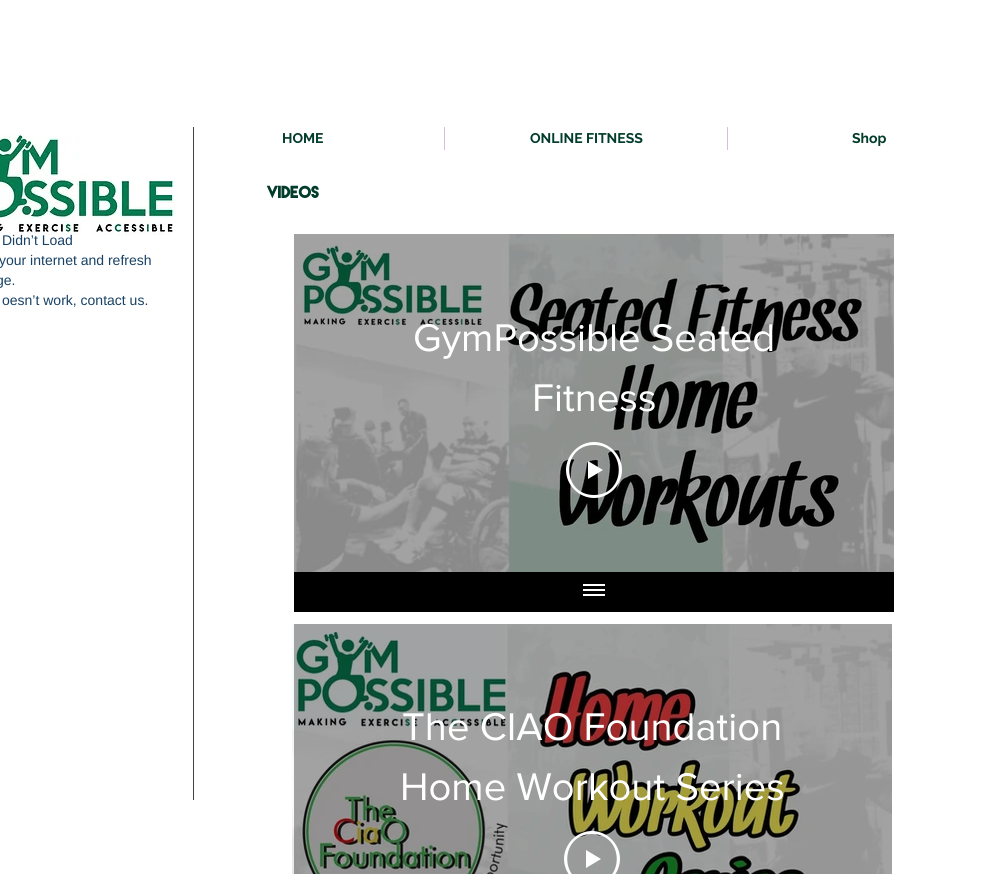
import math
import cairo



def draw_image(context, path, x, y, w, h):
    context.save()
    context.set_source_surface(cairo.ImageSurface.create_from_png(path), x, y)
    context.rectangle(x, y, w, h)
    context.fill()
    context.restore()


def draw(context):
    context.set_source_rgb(1, 1, 1)
    context.paint()
    draw_image(context, "images/1.png", 0, 133, 177, 103)
    context.set_source_rgb(66 / 255, 66 / 255, 66 / 255)
    context.rectangle(193, 127, 1, 673)
    context.fill()
    context.set_source_rgb(216 / 255, 189 / 255, 226 / 255)
    context.rectangle(444, 127, 1, 23)
    context.fill()
    context.rectangle(727, 127, 1, 23)
    context.fill()
    draw_image(context, "images/2.png", 294, 234, 600, 338)
    draw_image(context, "images/3.png", 303, 245, 587, 326)
    context.set_source_rgb(1, 1, 1)
    context.set_fill_rule(cairo.FillRule.EVEN_ODD)
    context.new_path()
    context.move_to(594, 495)
    context.curve_to(627, 495, 627, 445, 594, 445)
    context.curve_to(561, 445, 561, 495, 594, 495)
    context.close_path()
    context.move_to(594, 498)
    context.curve_to(579, 498, 566, 485, 566, 470)
    context.curve_to(566, 455, 579, 442, 594, 442)
    context.curve_to(609, 442, 622, 455, 622, 470)
    context.curve_to(622, 485, 609, 498, 594, 498)
    context.close_path()
    context.fill()
    context.new_path()
    context.move_to(603, 470)
    context.line_to(588, 479)
    context.line_to(588, 461)
    context.close_path()
    context.fill()
    context.set_source_rgb(0, 0, 0)
    context.rectangle(294, 572, 600, 40)
    context.fill()
    draw_image(context, "images/4.png", 583, 584, 22, 12)
    draw_image(context, "images/5.png", 292, 624, 2, 250)
    draw_image(context, "images/6.png", 294, 624, 598, 250)
    context.set_source_rgb(1, 1, 1)
    context.new_path()
    context.move_to(592, 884)
    context.curve_to(625, 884, 625, 834, 592, 834)
    context.curve_to(559, 834, 559, 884, 592, 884)
    context.close_path()
    context.move_to(592, 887)
    context.curve_to(577, 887, 564, 874, 564, 859)
    context.curve_to(564, 844, 577, 831, 592, 831)
    context.curve_to(607, 831, 620, 844, 620, 859)
    context.curve_to(620, 874, 607, 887, 592, 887)
    context.close_path()
    context.fill()
    context.new_path()
    context.move_to(601, 859)
    context.line_to(586, 868)
    context.line_to(586, 850)
    context.close_path()
    context.fill()
    context.select_font_face("Raleway", cairo.FontSlant.NORMAL, cairo.FontWeight.BOLD)
    context.set_font_size(14)
    context.set_source_rgb(2 / 255, 60 / 255, 42 / 255)
    context.move_to(282, 143)
    context.show_text("HOME")
    context.move_to(530, 143)
    context.show_text("ONLINE FITNESS")
    context.move_to(852, 143)
    context.show_text("Shop")
    context.select_font_face("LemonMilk", cairo.FontSlant.NORMAL, cairo.FontWeight.BOLD)
    context.set_font_size(15)
    context.move_to(267, 198)
    context.show_text("VIDEOS")
    context.select_font_face("Liberation Sans")
    context.set_font_size(14)
    context.set_source_rgb(23 / 255, 65 / 255, 101 / 255)
    context.move_to(2, 245)
    context.show_text("Didn’t Load")
    context.move_to(-1, 265)
    context.show_text("your internet and refresh")
    context.move_to(-4, 285)
    context.show_text("ge.")
    context.move_to(2, 305)
    context.show_text("oesn’t work, contact us.")
    context.select_font_face("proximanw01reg")
    context.set_font_size(40)
    context.set_source_rgb(1, 1, 1)
    context.move_to(413, 351)
    context.show_text("GymPossible Seated")
    context.move_to(532, 411)
    context.show_text("Fitness")
    context.move_to(402, 740)
    context.show_text("The CIAO Foundation")
    context.move_to(400, 800)
    context.show_text("Home Workout Series")


surface = cairo.ImageSurface(cairo.Format.RGB24, 1008, 874)
context = cairo.Context(surface)
options = cairo.FontOptions()
options.set_hint_metrics(cairo.HintMetrics.OFF)
options.set_hint_style(cairo.HintStyle.NONE)
context.set_font_options(options)
context.set_miter_limit(4)
draw(context)
surface.write_to_png("out.png")
